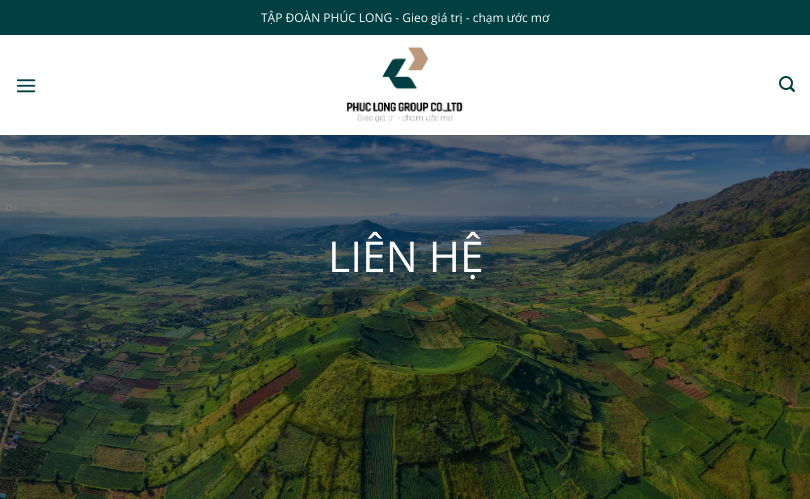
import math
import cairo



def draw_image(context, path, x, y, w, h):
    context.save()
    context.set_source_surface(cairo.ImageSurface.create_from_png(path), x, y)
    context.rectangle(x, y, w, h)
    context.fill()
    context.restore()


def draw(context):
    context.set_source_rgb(1, 1, 1)
    context.paint()
    context.set_source_rgb(0, 64 / 255, 66 / 255)
    context.rectangle(0, 0, 810, 35)
    context.fill()
    draw_image(context, "images/1.png", 16, 79, 20, 14)
    draw_image(context, "images/2.png", 346, 46, 117, 77)
    draw_image(context, "images/3.png", 779, 76, 16, 16)
    draw_image(context, "images/4.png", 0, 135, 810, 364)
    context.set_source_rgba(33 / 255, 33 / 255, 33 / 255, 0.1)
    context.rectangle(15, 135, 780, 1)
    context.fill()
    context.select_font_face("Open Sans")
    context.set_font_size(12)
    context.set_source_rgb(1, 1, 1)
    context.move_to(261, 22)
    context.show_text("TẬP ĐOÀN PHÚC LONG - Gieo giá trị - chạm ước mơ")
    context.set_font_size(42.5)
    context.move_to(328, 272)
    context.show_text("LIÊN HỆ")


surface = cairo.ImageSurface(cairo.Format.RGB24, 810, 499)
context = cairo.Context(surface)
options = cairo.FontOptions()
options.set_hint_metrics(cairo.HintMetrics.OFF)
options.set_hint_style(cairo.HintStyle.NONE)
context.set_font_options(options)
context.set_miter_limit(4)
draw(context)
surface.write_to_png("out.png")
